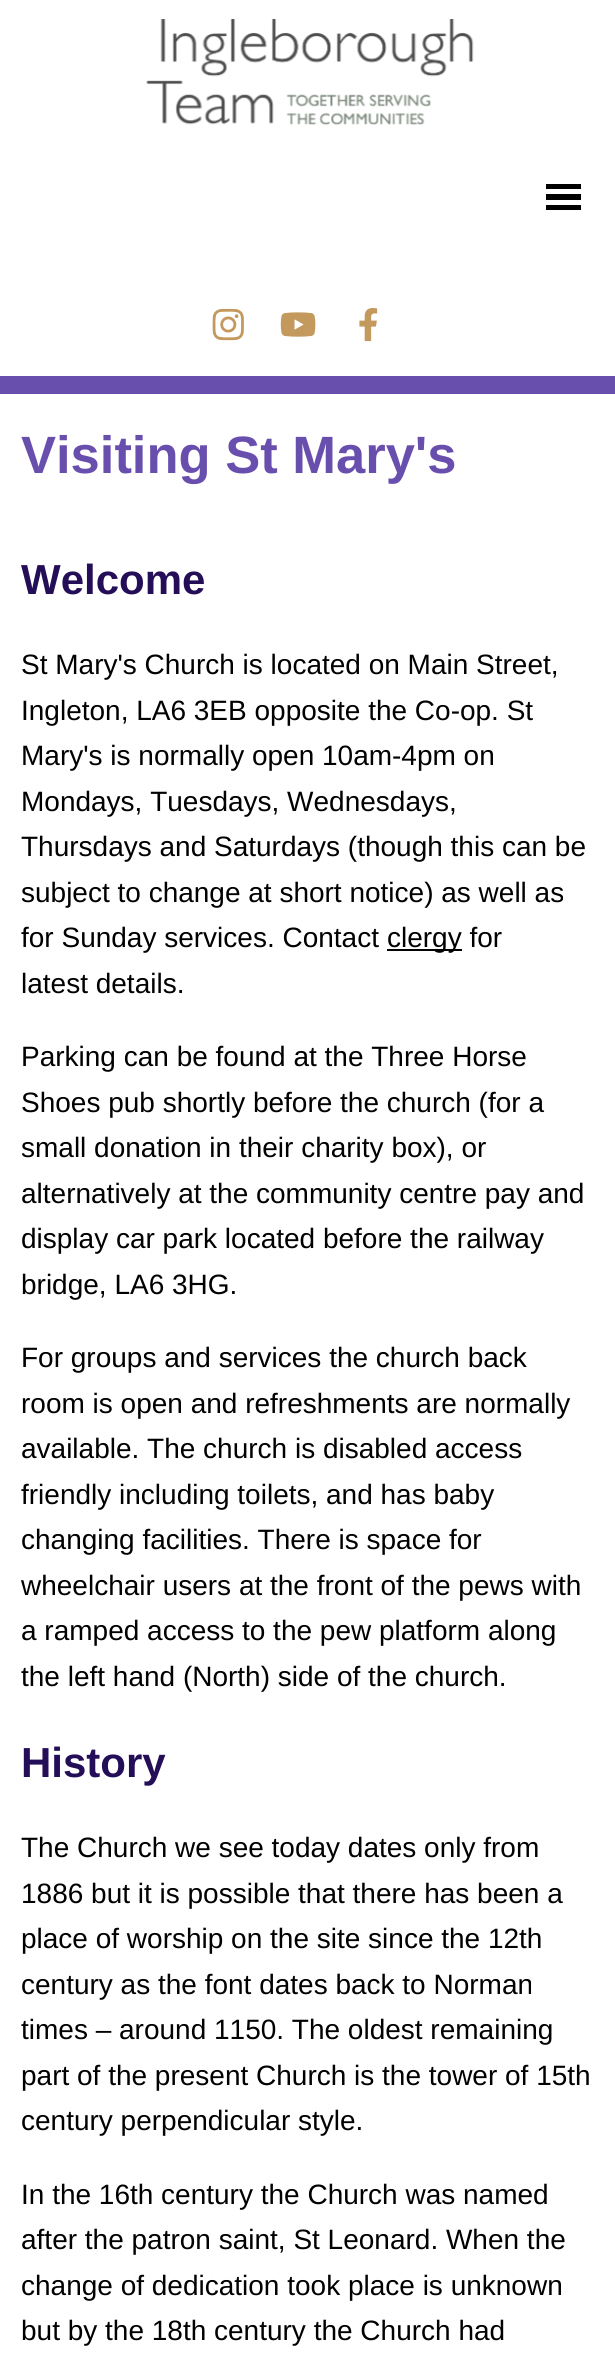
import math
import cairo



def draw_image(context, path, x, y, w, h):
    context.save()
    context.set_source_surface(cairo.ImageSurface.create_from_png(path), x, y)
    context.rectangle(x, y, w, h)
    context.fill()
    context.restore()


def draw(context):
    context.set_source_rgb(1, 1, 1)
    context.paint()
    draw_image(context, "images/1.png", 146, 19, 328, 106)
    context.set_source_rgb(0, 0, 0)
    context.rectangle(546, 184, 35, 5)
    context.fill()
    context.rectangle(546, 194, 35, 6)
    context.fill()
    context.rectangle(546, 205, 35, 5)
    context.fill()
    draw_image(context, "images/2.png", 212, 308, 32, 33)
    draw_image(context, "images/3.png", 280, 312, 36, 25)
    draw_image(context, "images/4.png", 359, 308, 19, 34)
    context.set_source_rgb(105 / 255, 79 / 255, 173 / 255)
    context.rectangle(0, 376, 615, 18)
    context.fill()
    context.set_source_rgb(0, 0, 0)
    context.rectangle(387, 949, 75, 2)
    context.fill()
    context.select_font_face("Liberation Sans", cairo.FontSlant.NORMAL, cairo.FontWeight.BOLD)
    context.set_font_size(52.5)
    context.set_source_rgb(105 / 255, 79 / 255, 173 / 255)
    context.move_to(21, 473)
    context.show_text("Visiting St Mary's")
    context.set_font_size(42)
    context.set_source_rgb(36 / 255, 14 / 255, 88 / 255)
    context.move_to(21, 594)
    context.show_text("Welcome")
    context.select_font_face("Liberation Sans")
    context.set_font_size(28)
    context.set_source_rgb(0, 0, 0)
    context.move_to(21, 674)
    context.show_text("St Mary's Church is located on Main Street,")
    context.move_to(21, 720)
    context.show_text("Ingleton, LA6 3EB opposite the Co-op. St")
    context.move_to(21, 765)
    context.show_text("Mary's is normally open 10am-4pm on")
    context.move_to(21, 811)
    context.show_text("Mondays, Tuesdays, Wednesdays,")
    context.move_to(21, 856)
    context.show_text("Thursdays and Saturdays (though this can be")
    context.move_to(21, 902)
    context.show_text("subject to change at short notice) as well as")
    context.move_to(21, 947)
    context.show_text("for Sunday services. Contact")
    context.move_to(387, 947)
    context.show_text("clergy for")
    context.move_to(21, 993)
    context.show_text("latest details.")
    context.move_to(21, 1066)
    context.show_text("Parking can be found at the Three Horse")
    context.move_to(21, 1112)
    context.show_text("Shoes pub shortly before the church (for a")
    context.move_to(21, 1157)
    context.show_text("small donation in their charity box), or")
    context.move_to(21, 1203)
    context.show_text("alternatively at the community centre pay and")
    context.move_to(21, 1248)
    context.show_text("display car park located before the railway")
    context.move_to(21, 1294)
    context.show_text("bridge, LA6 3HG.")
    context.move_to(21, 1367)
    context.show_text("For groups and services the church back")
    context.move_to(21, 1413)
    context.show_text("room is open and refreshments are normally")
    context.move_to(21, 1458)
    context.show_text("available. The church is disabled access")
    context.move_to(21, 1504)
    context.show_text("friendly including toilets, and has baby")
    context.move_to(21, 1549)
    context.show_text("changing facilities. There is space for")
    context.move_to(21, 1595)
    context.show_text("wheelchair users at the front of the pews with")
    context.move_to(21, 1640)
    context.show_text("a ramped access to the pew platform along")
    context.move_to(21, 1686)
    context.show_text("the left hand (North) side of the church.")
    context.select_font_face("Liberation Sans", cairo.FontSlant.NORMAL, cairo.FontWeight.BOLD)
    context.set_font_size(42)
    context.set_source_rgb(36 / 255, 14 / 255, 88 / 255)
    context.move_to(21, 1777)
    context.show_text("History")
    context.select_font_face("Liberation Sans")
    context.set_font_size(28)
    context.set_source_rgb(0, 0, 0)
    context.move_to(21, 1857)
    context.show_text("The Church we see today dates only from")
    context.move_to(21, 1903)
    context.show_text("1886 but it is possible that there has been a")
    context.move_to(21, 1948)
    context.show_text("place of worship on the site since the 12th")
    context.move_to(21, 1994)
    context.show_text("century as the font dates back to Norman")
    context.move_to(21, 2039)
    context.show_text("times – around 1150. The oldest remaining")
    context.move_to(21, 2085)
    context.show_text("part of the present Church is the tower of 15th")
    context.move_to(21, 2130)
    context.show_text("century perpendicular style.")
    context.move_to(21, 2204)
    context.show_text("In the 16th century the Church was named")
    context.move_to(21, 2249)
    context.show_text("after the patron saint, St Leonard. When the")
    context.move_to(21, 2295)
    context.show_text("change of dedication took place is unknown")
    context.move_to(21, 2340)
    context.show_text("but by the 18th century the Church had")


surface = cairo.ImageSurface(cairo.Format.RGB24, 615, 2367)
context = cairo.Context(surface)
options = cairo.FontOptions()
options.set_hint_metrics(cairo.HintMetrics.OFF)
options.set_hint_style(cairo.HintStyle.NONE)
context.set_font_options(options)
context.set_miter_limit(4)
draw(context)
surface.write_to_png("out.png")
